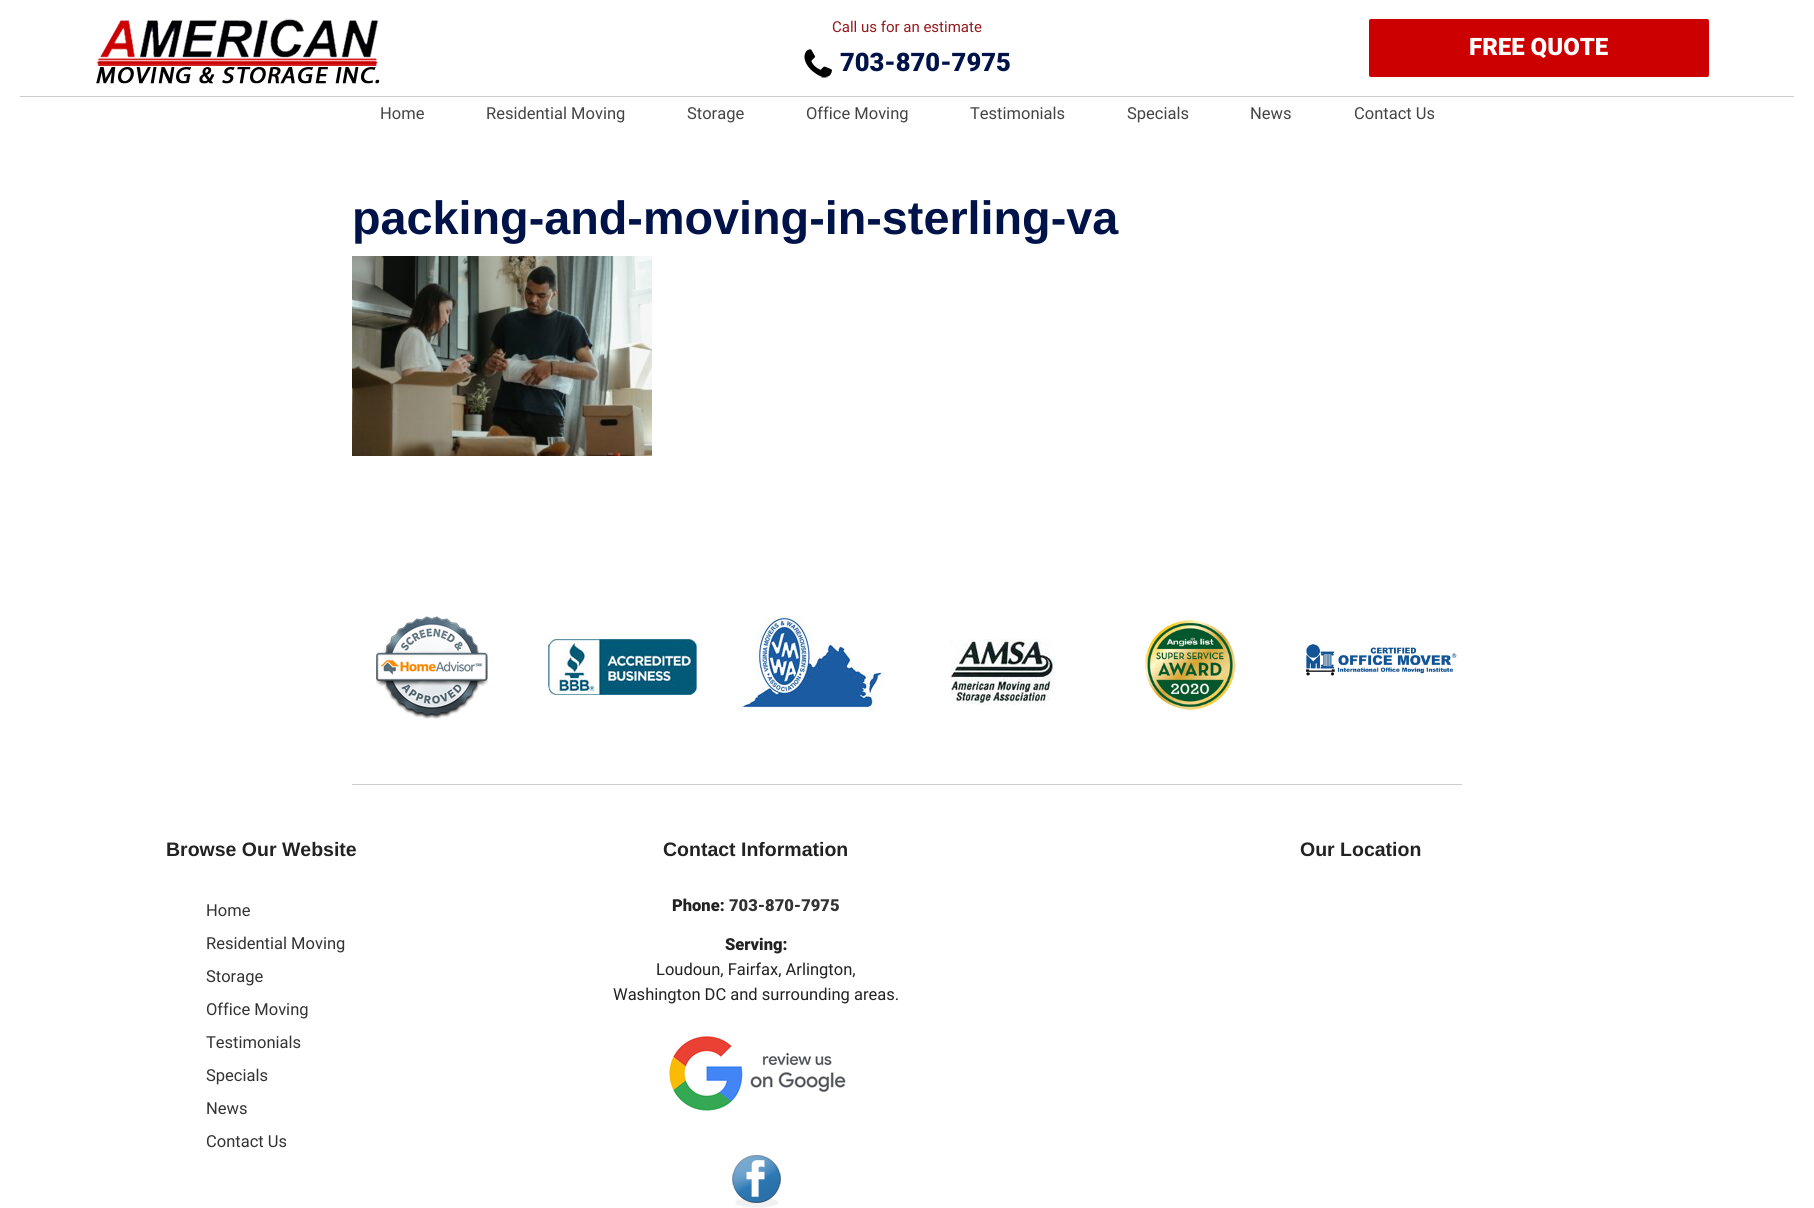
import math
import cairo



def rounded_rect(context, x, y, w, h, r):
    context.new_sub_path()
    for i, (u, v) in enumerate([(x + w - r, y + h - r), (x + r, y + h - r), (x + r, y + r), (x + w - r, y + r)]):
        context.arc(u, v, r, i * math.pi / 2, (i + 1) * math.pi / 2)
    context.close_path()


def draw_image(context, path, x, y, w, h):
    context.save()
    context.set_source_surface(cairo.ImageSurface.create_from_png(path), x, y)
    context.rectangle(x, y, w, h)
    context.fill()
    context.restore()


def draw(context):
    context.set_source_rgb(1, 1, 1)
    context.paint()
    draw_image(context, "images/1.png", 96, 18, 284, 66)
    draw_image(context, "images/2.png", 804, 49, 28, 29)
    context.set_source_rgb(204 / 255, 0, 0)
    rounded_rect(context, 1369, 19, 340, 58, 2)
    context.fill()
    context.set_source_rgb(204 / 255, 204 / 255, 204 / 255)
    context.rectangle(20, 96, 1774, 1)
    context.fill()
    draw_image(context, "images/3.png", 352, 256, 300, 200)
    draw_image(context, "images/4.png", 376, 616, 112, 103)
    draw_image(context, "images/5.png", 548, 639, 149, 56)
    draw_image(context, "images/6.png", 740, 616, 144, 95)
    draw_image(context, "images/7.png", 950, 639, 105, 66)
    draw_image(context, "images/8.png", 1145, 620, 91, 90)
    draw_image(context, "images/9.png", 1305, 644, 152, 32)
    context.rectangle(352, 784, 1110, 1)
    context.fill()
    draw_image(context, "images/10.png", 669, 1036, 177, 75)
    draw_image(context, "images/11.png", 732, 1155, 49, 53)
    context.select_font_face("Roboto")
    context.set_font_size(15)
    context.set_source_rgb(148 / 255, 26 / 255, 29 / 255)
    context.move_to(832, 32)
    context.show_text("Call us for an estimate")
    context.select_font_face("Roboto Black")
    context.set_font_size(25.5)
    context.set_source_rgb(0, 19 / 255, 73 / 255)
    context.move_to(840, 71)
    context.show_text("703-870-7975")
    context.set_font_size(24)
    context.set_source_rgb(1, 1, 1)
    context.move_to(1469, 55)
    context.show_text("FREE QUOTE")
    context.select_font_face("Roboto")
    context.set_font_size(16.5)
    context.set_source_rgb(68 / 255, 68 / 255, 68 / 255)
    context.move_to(380, 119)
    context.show_text("Home")
    context.move_to(486, 119)
    context.show_text("Residential Moving")
    context.move_to(687, 119)
    context.show_text("Storage")
    context.move_to(806, 119)
    context.show_text("Office Moving")
    context.move_to(970, 119)
    context.show_text("Testimonials")
    context.move_to(1127, 119)
    context.show_text("Specials")
    context.move_to(1250, 119)
    context.show_text("News")
    context.move_to(1354, 119)
    context.show_text("Contact Us")
    context.select_font_face("Liberation Sans", cairo.FontSlant.NORMAL, cairo.FontWeight.BOLD)
    context.set_font_size(46.75)
    context.set_source_rgb(0, 19 / 255, 73 / 255)
    context.move_to(352, 234)
    context.show_text("packing-and-moving-in-sterling-va")
    context.set_font_size(19.5)
    context.set_source_rgb(34 / 255, 34 / 255, 34 / 255)
    context.move_to(166, 856)
    context.show_text("Browse Our Website")
    context.select_font_face("Roboto")
    context.set_font_size(16.5)
    context.set_source_rgb(51 / 255, 51 / 255, 51 / 255)
    context.move_to(206, 916)
    context.show_text("Home")
    context.move_to(206, 949)
    context.show_text("Residential Moving")
    context.move_to(206, 982)
    context.show_text("Storage")
    context.move_to(206, 1015)
    context.show_text("Office Moving")
    context.move_to(206, 1048)
    context.show_text("Testimonials")
    context.move_to(206, 1081)
    context.show_text("Specials")
    context.move_to(206, 1114)
    context.show_text("News")
    context.move_to(206, 1147)
    context.show_text("Contact Us")
    context.select_font_face("Liberation Sans", cairo.FontSlant.NORMAL, cairo.FontWeight.BOLD)
    context.set_font_size(19.5)
    context.set_source_rgb(34 / 255, 34 / 255, 34 / 255)
    context.move_to(663, 856)
    context.show_text("Contact Information")
    context.select_font_face("Roboto Black")
    context.set_font_size(16.5)
    context.move_to(672, 911)
    context.show_text("Phone:")
    context.set_source_rgb(51 / 255, 51 / 255, 51 / 255)
    context.move_to(729, 911)
    context.show_text("703-870-7975")
    context.set_source_rgb(34 / 255, 34 / 255, 34 / 255)
    context.move_to(725, 950)
    context.show_text("Serving:")
    context.select_font_face("Roboto")
    context.move_to(656, 975)
    context.show_text("Loudoun, Fairfax, Arlington,")
    context.move_to(613, 1000)
    context.show_text("Washington DC and surrounding areas.")
    context.select_font_face("Liberation Sans", cairo.FontSlant.NORMAL, cairo.FontWeight.BOLD)
    context.set_font_size(19.5)
    context.move_to(1300, 856)
    context.show_text("Our Location")


surface = cairo.ImageSurface(cairo.Format.RGB24, 1814, 1208)
context = cairo.Context(surface)
options = cairo.FontOptions()
options.set_hint_metrics(cairo.HintMetrics.OFF)
options.set_hint_style(cairo.HintStyle.NONE)
context.set_font_options(options)
context.set_miter_limit(4)
draw(context)
surface.write_to_png("out.png")
